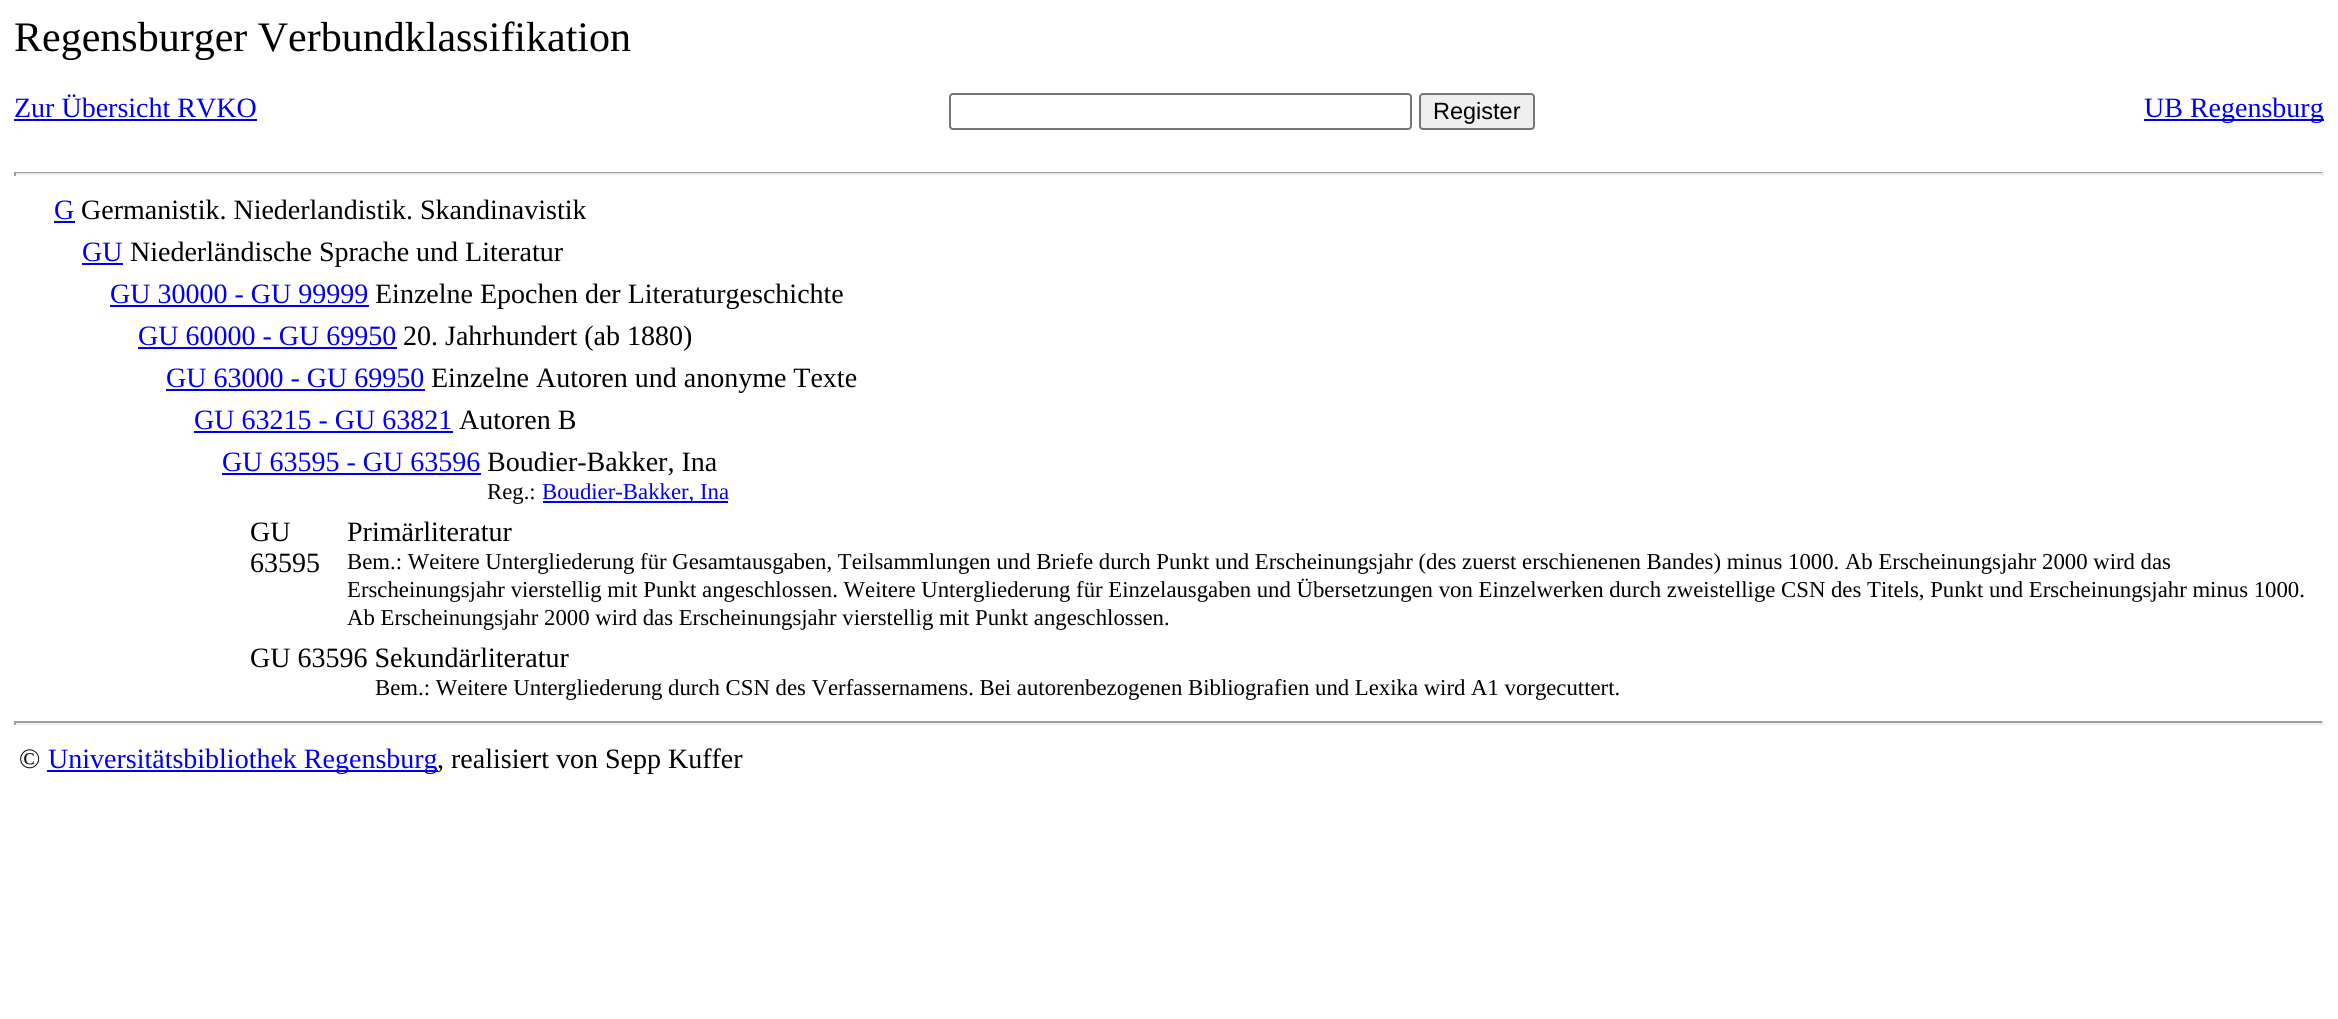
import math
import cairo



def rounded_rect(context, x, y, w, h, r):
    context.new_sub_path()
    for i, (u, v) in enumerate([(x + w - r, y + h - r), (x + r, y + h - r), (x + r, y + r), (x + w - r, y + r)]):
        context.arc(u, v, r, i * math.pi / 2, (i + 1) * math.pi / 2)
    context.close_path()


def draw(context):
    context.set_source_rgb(1, 1, 1)
    context.paint()
    context.set_source_rgb(0, 0, 238 / 255)
    context.rectangle(14, 119, 243, 2)
    context.fill()
    rounded_rect(context, 950, 94, 461, 35, 3)
    context.set_source_rgb(118 / 255, 118 / 255, 118 / 255)
    context.stroke()
    context.set_source_rgb(239 / 255, 239 / 255, 239 / 255)
    rounded_rect(context, 1420, 94, 114, 35, 3)
    context.fill_preserve()
    context.set_source_rgb(118 / 255, 118 / 255, 118 / 255)
    context.stroke()
    context.set_source_rgb(0, 0, 238 / 255)
    context.rectangle(2144, 119, 180, 2)
    context.fill()
    context.set_source_rgb(159 / 255, 159 / 255, 159 / 255)
    context.rectangle(14, 172, 2310, 1)
    context.fill()
    context.set_source_rgb(238 / 255, 238 / 255, 238 / 255)
    context.rectangle(2322, 172, 2, 4)
    context.fill()
    context.rectangle(14, 173, 2310, 2)
    context.fill()
    context.set_source_rgb(159 / 255, 159 / 255, 159 / 255)
    context.rectangle(14, 172, 2, 4)
    context.fill()
    context.set_source_rgb(0, 0, 238 / 255)
    context.rectangle(54, 221, 21, 2)
    context.fill()
    context.rectangle(82, 263, 41, 2)
    context.fill()
    context.rectangle(110, 305, 259, 2)
    context.fill()
    context.rectangle(138, 347, 259, 2)
    context.fill()
    context.rectangle(166, 389, 259, 2)
    context.fill()
    context.rectangle(194, 431, 259, 2)
    context.fill()
    context.rectangle(222, 473, 259, 2)
    context.fill()
    context.rectangle(543, 501, 185, 2)
    context.fill()
    context.set_source_rgb(159 / 255, 159 / 255, 159 / 255)
    context.rectangle(14, 721, 2310, 2)
    context.fill()
    context.set_source_rgb(238 / 255, 238 / 255, 238 / 255)
    context.rectangle(2322, 721, 2, 4)
    context.fill()
    context.rectangle(14, 723, 2310, 2)
    context.fill()
    context.set_source_rgb(159 / 255, 159 / 255, 159 / 255)
    context.rectangle(14, 721, 2, 4)
    context.fill()
    context.set_source_rgb(0, 0, 238 / 255)
    context.rectangle(47, 770, 391, 2)
    context.fill()
    context.select_font_face("Liberation Serif")
    context.set_font_size(42)
    context.set_source_rgb(0, 0, 0)
    context.move_to(14, 51)
    context.show_text("Regensburger Verbundklassifikation")
    context.set_font_size(28)
    context.set_source_rgb(0, 0, 238 / 255)
    context.move_to(14, 117)
    context.show_text("Zur Übersicht RVKO")
    context.select_font_face("Liberation Sans")
    context.set_font_size(23.5)
    context.set_source_rgb(0, 0, 0)
    context.move_to(1433, 119)
    context.show_text("Register")
    context.select_font_face("Liberation Serif")
    context.set_font_size(28)
    context.set_source_rgb(0, 0, 238 / 255)
    context.move_to(2144, 117)
    context.show_text("UB Regensburg")
    context.move_to(54, 219)
    context.show_text("G")
    context.set_source_rgb(0, 0, 0)
    context.move_to(81, 219)
    context.show_text("Germanistik. Niederlandistik. Skandinavistik")
    context.set_source_rgb(0, 0, 238 / 255)
    context.move_to(82, 261)
    context.show_text("GU")
    context.set_source_rgb(0, 0, 0)
    context.move_to(130, 261)
    context.show_text("Niederländische Sprache und Literatur")
    context.set_source_rgb(0, 0, 238 / 255)
    context.move_to(110, 303)
    context.show_text("GU 30000 - GU 99999")
    context.set_source_rgb(0, 0, 0)
    context.move_to(375, 303)
    context.show_text("Einzelne Epochen der Literaturgeschichte")
    context.set_source_rgb(0, 0, 238 / 255)
    context.move_to(138, 345)
    context.show_text("GU 60000 - GU 69950")
    context.set_source_rgb(0, 0, 0)
    context.move_to(403, 345)
    context.show_text("20. Jahrhundert (ab 1880)")
    context.set_source_rgb(0, 0, 238 / 255)
    context.move_to(166, 387)
    context.show_text("GU 63000 - GU 69950")
    context.set_source_rgb(0, 0, 0)
    context.move_to(431, 387)
    context.show_text("Einzelne Autoren und anonyme Texte")
    context.set_source_rgb(0, 0, 238 / 255)
    context.move_to(194, 429)
    context.show_text("GU 63215 - GU 63821")
    context.set_source_rgb(0, 0, 0)
    context.move_to(459, 429)
    context.show_text("Autoren B")
    context.set_source_rgb(0, 0, 238 / 255)
    context.move_to(222, 471)
    context.show_text("GU 63595 - GU 63596")
    context.set_source_rgb(0, 0, 0)
    context.move_to(487, 471)
    context.show_text("Boudier-Bakker, Ina")
    context.set_font_size(22.75)
    context.move_to(487, 499)
    context.show_text("Reg.:")
    context.set_source_rgb(0, 0, 238 / 255)
    context.move_to(542, 499)
    context.show_text("Boudier-Bakker, Ina")
    context.set_font_size(28)
    context.set_source_rgb(0, 0, 0)
    context.move_to(250, 541)
    context.show_text("GU")
    context.move_to(250, 572)
    context.show_text("63595")
    context.move_to(347, 541)
    context.show_text("Primärliteratur")
    context.set_font_size(22.75)
    context.move_to(347, 569)
    context.show_text("Bem.: Weitere Untergliederung für Gesamtausgaben, Teilsammlungen und Briefe durch Punkt und Erscheinungsjahr (des zuerst erschienenen Bandes) minus 1000. Ab Erscheinungsjahr 2000 wird das")
    context.move_to(347, 597)
    context.show_text("Erscheinungsjahr vierstellig mit Punkt angeschlossen. Weitere Untergliederung für Einzelausgaben und Übersetzungen von Einzelwerken durch zweistellige CSN des Titels, Punkt und Erscheinungsjahr minus 1000.")
    context.move_to(347, 625)
    context.show_text("Ab Erscheinungsjahr 2000 wird das Erscheinungsjahr vierstellig mit Punkt angeschlossen.")
    context.set_font_size(28)
    context.move_to(250, 667)
    context.show_text("GU 63596 Sekundärliteratur")
    context.set_font_size(22.75)
    context.move_to(375, 695)
    context.show_text("Bem.: Weitere Untergliederung durch CSN des Verfassernamens. Bei autorenbezogenen Bibliografien und Lexika wird A1 vorgecuttert.")
    context.set_font_size(28)
    context.move_to(19, 768)
    context.show_text("©")
    context.set_source_rgb(0, 0, 238 / 255)
    context.move_to(48, 768)
    context.show_text("Universitätsbibliothek Regensburg")
    context.set_source_rgb(0, 0, 0)
    context.move_to(437, 768)
    context.show_text(", realisiert von Sepp Kuffer")


surface = cairo.ImageSurface(cairo.Format.RGB24, 2338, 1019)
context = cairo.Context(surface)
options = cairo.FontOptions()
options.set_hint_metrics(cairo.HintMetrics.OFF)
options.set_hint_style(cairo.HintStyle.NONE)
context.set_font_options(options)
context.set_miter_limit(4)
draw(context)
surface.write_to_png("out.png")
